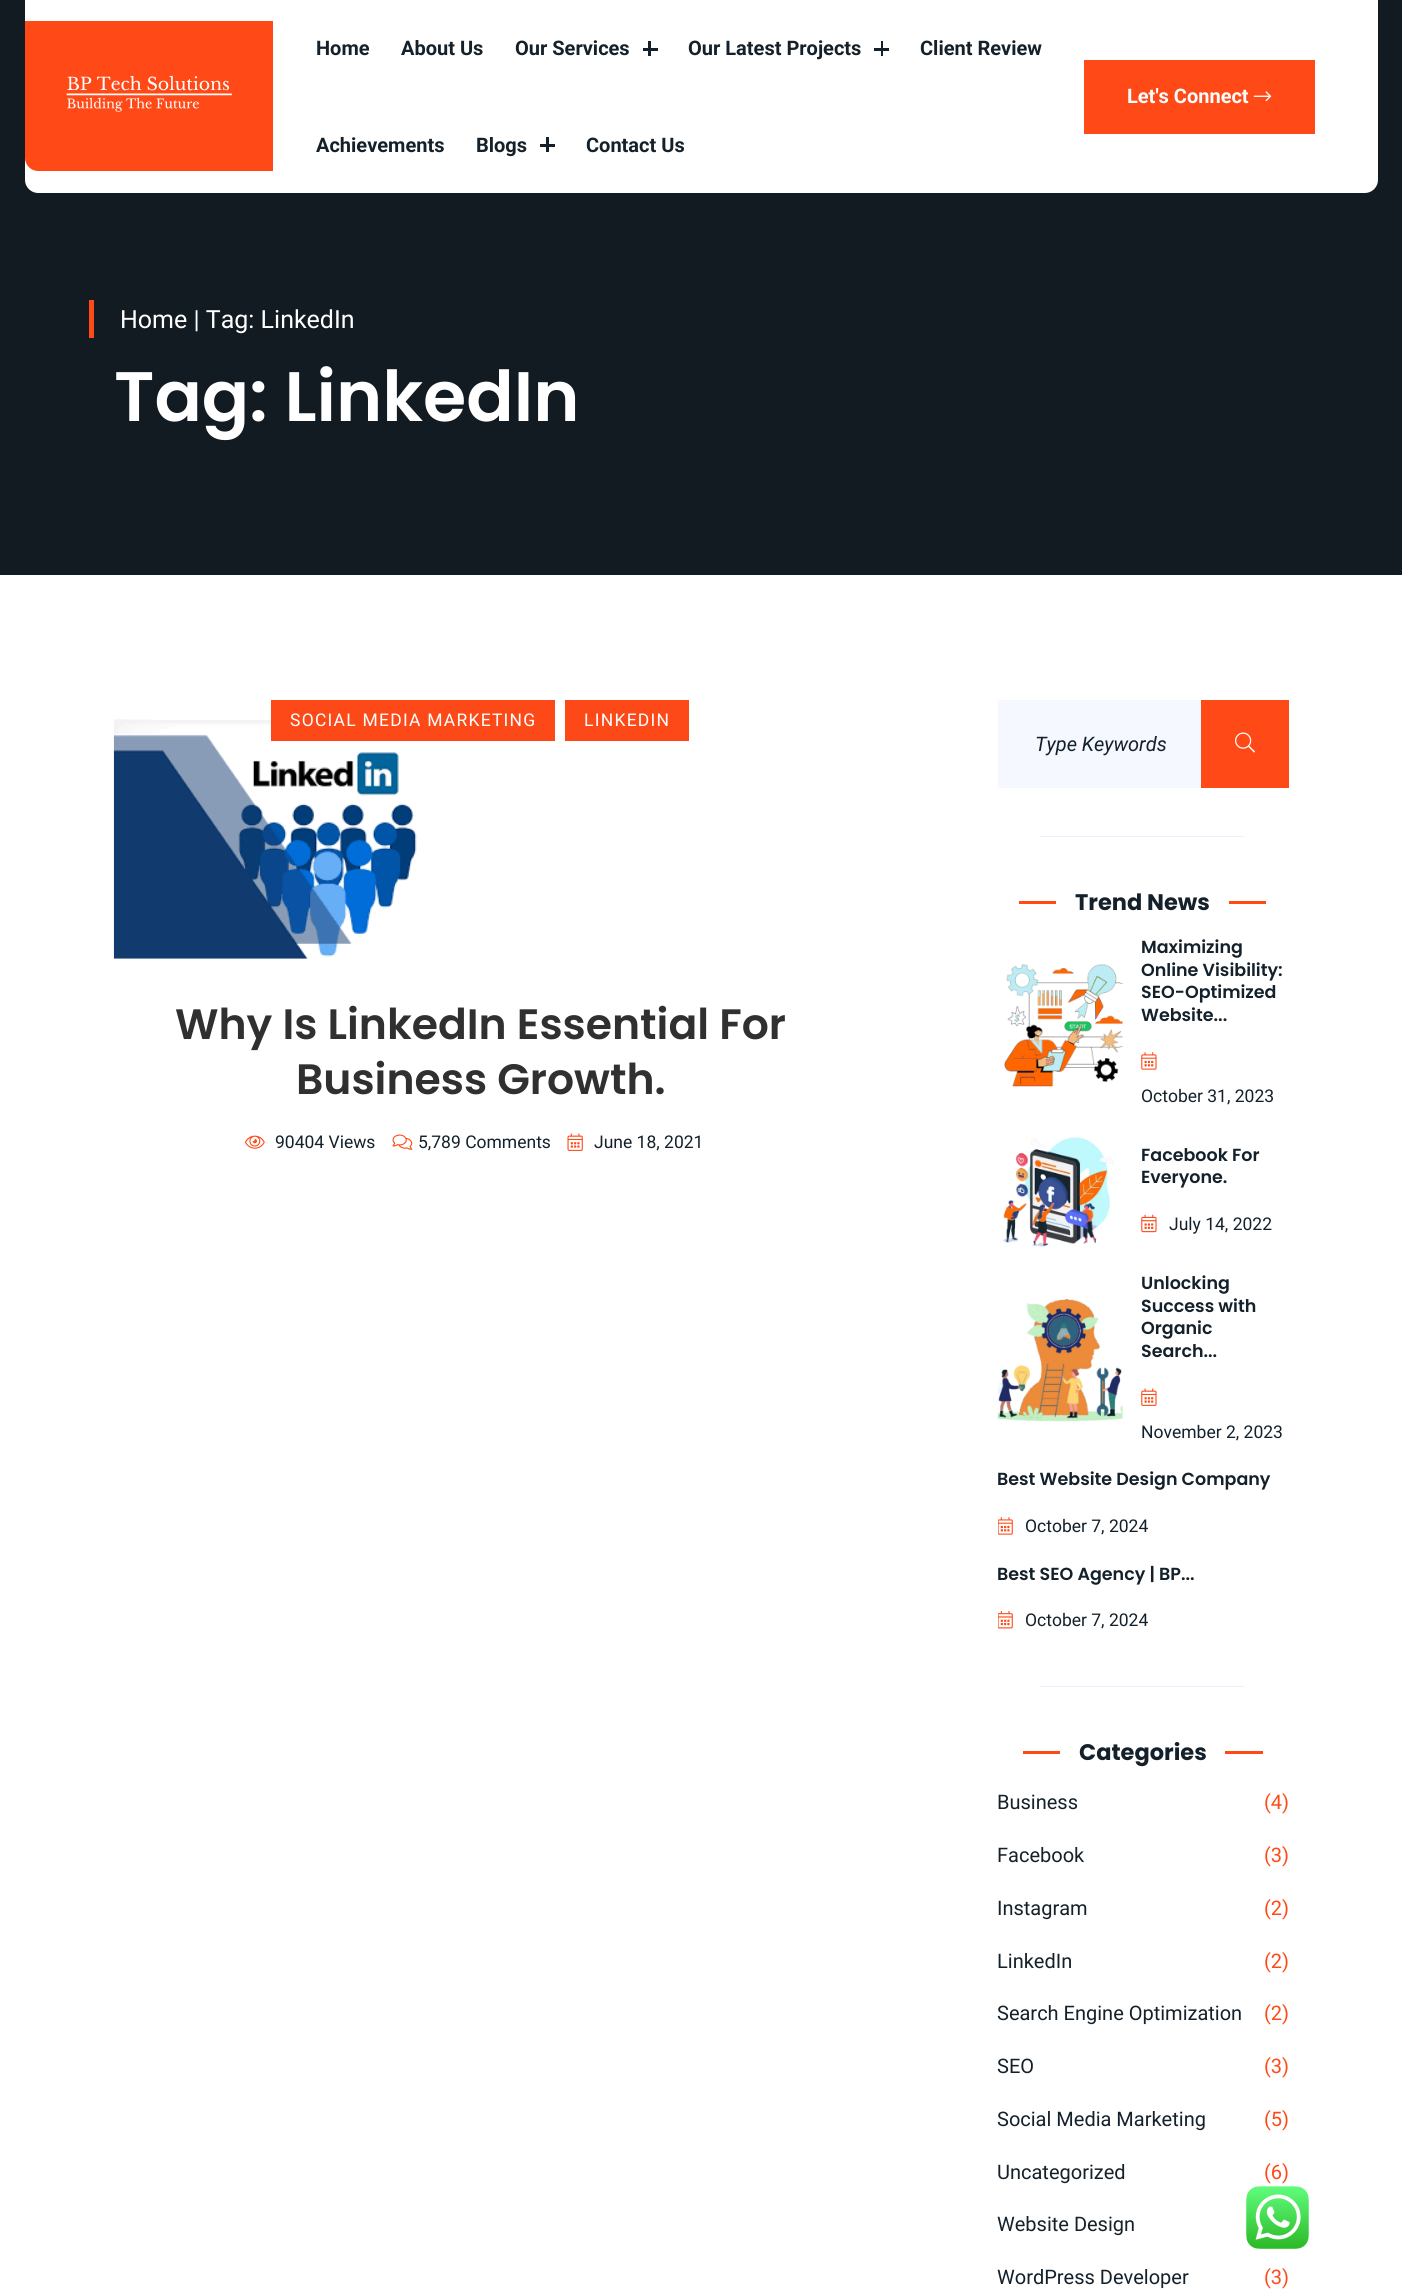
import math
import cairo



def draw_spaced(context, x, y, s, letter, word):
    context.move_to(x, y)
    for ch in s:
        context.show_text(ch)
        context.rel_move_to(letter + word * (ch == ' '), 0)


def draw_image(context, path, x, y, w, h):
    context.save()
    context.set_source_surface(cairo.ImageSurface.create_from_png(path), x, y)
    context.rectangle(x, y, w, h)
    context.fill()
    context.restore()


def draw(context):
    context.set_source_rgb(1, 1, 1)
    context.paint()
    context.set_source_rgb(18 / 255, 27 / 255, 34 / 255)
    context.rectangle(0, 0, 1402, 575)
    context.fill()
    context.set_source_rgb(1, 1, 1)
    context.new_path()
    context.move_to(25, 0)
    context.line_to(1378, 0)
    context.line_to(1378, 180)
    context.curve_to(1378, 187, 1372, 193, 1365, 193)
    context.line_to(38, 193)
    context.curve_to(31, 193, 25, 187, 25, 180)
    context.close_path()
    context.fill()
    context.set_source_rgb(1, 74 / 255, 23 / 255)
    context.new_path()
    context.move_to(25, 21)
    context.line_to(273, 21)
    context.line_to(273, 171)
    context.line_to(38, 171)
    context.curve_to(31, 171, 25, 165, 25, 158)
    context.close_path()
    context.fill()
    draw_image(context, "images/1.png", 66, 75, 166, 37)
    context.set_source_rgb(20 / 255, 33 / 255, 43 / 255)
    context.rectangle(648, 41, 3, 15)
    context.fill()
    context.rectangle(643, 48, 15, 3)
    context.fill()
    context.rectangle(881, 41, 2, 15)
    context.fill()
    context.rectangle(874, 48, 15, 3)
    context.fill()
    context.rectangle(546, 137, 3, 15)
    context.fill()
    context.rectangle(540, 144, 15, 3)
    context.fill()
    context.set_source_rgb(1, 74 / 255, 23 / 255)
    context.rectangle(1084, 60, 231, 74)
    context.fill()
    draw_image(context, "images/2.png", 1253, 91, 19, 11)
    context.rectangle(89, 300, 5, 38)
    context.fill()
    draw_image(context, "images/3.png", 113, 719, 329, 240)
    context.set_source_rgb(253 / 255, 73 / 255, 23 / 255)
    context.rectangle(271, 700, 284, 41)
    context.fill()
    context.rectangle(565, 700, 124, 41)
    context.fill()
    draw_image(context, "images/4.png", 245, 1135, 20, 14)
    draw_image(context, "images/5.png", 392, 1134, 21, 16)
    draw_image(context, "images/6.png", 567, 1133, 16, 18)
    context.set_source_rgb(245 / 255, 248 / 255, 1)
    context.rectangle(998, 700, 203, 88)
    context.fill()
    context.set_source_rgb(1, 74 / 255, 23 / 255)
    context.rectangle(1201, 700, 88, 88)
    context.fill()
    draw_image(context, "images/7.png", 1235, 732, 20, 21)
    context.set_source_rgb(235 / 255, 241 / 255, 1)
    context.rectangle(1040, 836, 205, 1)
    context.fill()
    context.set_source_rgb(1, 74 / 255, 23 / 255)
    context.rectangle(1019, 901, 37, 3)
    context.fill()
    context.rectangle(1229, 901, 37, 3)
    context.fill()
    draw_image(context, "images/8.png", 1004, 964, 119, 123)
    draw_image(context, "images/9.png", 1141, 1052, 16, 18)
    draw_image(context, "images/10.png", 1003, 1137, 111, 110)
    draw_image(context, "images/11.png", 1141, 1214, 16, 19)
    draw_image(context, "images/12.png", 997, 1299, 126, 123)
    draw_image(context, "images/13.png", 1141, 1388, 16, 18)
    draw_image(context, "images/14.png", 998, 1517, 15, 18)
    draw_image(context, "images/15.png", 998, 1610, 15, 19)
    context.set_source_rgb(235 / 255, 241 / 255, 1)
    context.rectangle(1040, 1686, 205, 1)
    context.fill()
    context.set_source_rgb(1, 74 / 255, 23 / 255)
    context.rectangle(1023, 1751, 37, 3)
    context.fill()
    context.rectangle(1225, 1751, 38, 3)
    context.fill()
    draw_image(context, "images/16.png", 1246, 2186, 63, 63)
    context.select_font_face("Roboto", cairo.FontSlant.NORMAL, cairo.FontWeight.BOLD)
    context.set_font_size(20)
    context.set_source_rgb(20 / 255, 33 / 255, 43 / 255)
    context.move_to(316, 55)
    context.show_text("Home")
    context.move_to(401, 55)
    context.show_text("About Us")
    context.move_to(515, 55)
    context.show_text("Our Services")
    context.move_to(688, 55)
    context.show_text("Our Latest Projects")
    context.move_to(920, 55)
    context.show_text("Client Review")
    context.move_to(316, 152)
    context.show_text("Achievements")
    context.move_to(476, 152)
    context.show_text("Blogs")
    context.move_to(586, 152)
    context.show_text("Contact Us")
    context.set_source_rgb(1, 1, 1)
    context.move_to(1127, 103)
    context.show_text("Let's Connect")
    context.select_font_face("Roboto")
    context.set_font_size(25)
    context.move_to(120, 328)
    context.show_text("Home | Tag: LinkedIn")
    context.select_font_face("Poppins SemiBold")
    context.set_font_size(70)
    context.move_to(114, 421)
    context.show_text("Tag: LinkedIn")
    context.select_font_face("Roboto")
    context.set_font_size(17.5)
    draw_spaced(context, 290, 726, "SOCIAL MEDIA MARKETING", 1.25, 0)
    draw_spaced(context, 584, 726, "LINKEDIN", 1.25, 0)
    context.select_font_face("Poppins SemiBold")
    context.set_font_size(42.5)
    context.set_source_rgb(48 / 255, 48 / 255, 48 / 255)
    context.move_to(175, 1039)
    context.show_text("Why Is LinkedIn Essential For")
    context.move_to(296, 1094)
    context.show_text("Business Growth.")
    context.select_font_face("Roboto")
    context.set_font_size(17.5)
    context.set_source_rgb(20 / 255, 33 / 255, 43 / 255)
    context.move_to(275, 1148)
    context.show_text("90404 Views")
    context.move_to(418, 1148)
    context.show_text("5,789 Comments")
    context.move_to(594, 1148)
    context.show_text("June 18, 2021")
    context.select_font_face("Roboto", cairo.FontSlant.ITALIC)
    context.set_font_size(20)
    context.move_to(1035, 751)
    context.show_text("Type Keywords")
    context.select_font_face("Poppins", cairo.FontSlant.NORMAL, cairo.FontWeight.BOLD)
    context.set_font_size(22.5)
    context.move_to(1075, 910)
    context.show_text("Trend News")
    context.select_font_face("Poppins SemiBold")
    context.set_font_size(17.5)
    context.move_to(1141, 953)
    context.show_text("Maximizing")
    context.move_to(1141, 976)
    context.show_text("Online Visibility:")
    context.move_to(1141, 998)
    context.show_text("SEO-Optimized")
    context.move_to(1141, 1021)
    context.show_text("Website...")
    context.select_font_face("Roboto")
    context.move_to(1141, 1102)
    context.show_text("October 31, 2023")
    context.select_font_face("Poppins SemiBold")
    context.move_to(1141, 1161)
    context.show_text("Facebook For")
    context.move_to(1141, 1183)
    context.show_text("Everyone.")
    context.select_font_face("Roboto")
    context.move_to(1169, 1230)
    context.show_text("July 14, 2022")
    context.select_font_face("Poppins SemiBold")
    context.move_to(1141, 1289)
    context.show_text("Unlocking")
    context.move_to(1141, 1312)
    context.show_text("Success with")
    context.move_to(1141, 1334)
    context.show_text("Organic")
    context.move_to(1141, 1357)
    context.show_text("Search...")
    context.select_font_face("Roboto")
    context.move_to(1141, 1438)
    context.show_text("November 2, 2023")
    context.select_font_face("Poppins SemiBold")
    context.move_to(997, 1485)
    context.show_text("Best Website Design Company")
    context.select_font_face("Roboto")
    context.move_to(1025, 1532)
    context.show_text("October 7, 2024")
    context.select_font_face("Poppins SemiBold")
    context.move_to(997, 1580)
    context.show_text("Best SEO Agency | BP...")
    context.select_font_face("Roboto")
    context.move_to(1025, 1626)
    context.show_text("October 7, 2024")
    context.select_font_face("Poppins", cairo.FontSlant.NORMAL, cairo.FontWeight.BOLD)
    context.set_font_size(22.5)
    context.move_to(1079, 1760)
    context.show_text("Categories")
    context.select_font_face("Roboto")
    context.set_font_size(20)
    context.move_to(997, 1809)
    context.show_text("Business")
    context.set_source_rgb(1, 74 / 255, 23 / 255)
    context.move_to(1264, 1809)
    context.show_text("(4)")
    context.set_source_rgb(20 / 255, 33 / 255, 43 / 255)
    context.move_to(997, 1862)
    context.show_text("Facebook")
    context.set_source_rgb(1, 74 / 255, 23 / 255)
    context.move_to(1264, 1862)
    context.show_text("(3)")
    context.set_source_rgb(20 / 255, 33 / 255, 43 / 255)
    context.move_to(997, 1915)
    context.show_text("Instagram")
    context.set_source_rgb(1, 74 / 255, 23 / 255)
    context.move_to(1264, 1915)
    context.show_text("(2)")
    context.set_source_rgb(20 / 255, 33 / 255, 43 / 255)
    context.move_to(997, 1968)
    context.show_text("LinkedIn")
    context.set_source_rgb(1, 74 / 255, 23 / 255)
    context.move_to(1264, 1968)
    context.show_text("(2)")
    context.set_source_rgb(20 / 255, 33 / 255, 43 / 255)
    context.move_to(997, 2020)
    context.show_text("Search Engine Optimization")
    context.set_source_rgb(1, 74 / 255, 23 / 255)
    context.move_to(1264, 2020)
    context.show_text("(2)")
    context.set_source_rgb(20 / 255, 33 / 255, 43 / 255)
    context.move_to(997, 2073)
    context.show_text("SEO")
    context.set_source_rgb(1, 74 / 255, 23 / 255)
    context.move_to(1264, 2073)
    context.show_text("(3)")
    context.set_source_rgb(20 / 255, 33 / 255, 43 / 255)
    context.move_to(997, 2126)
    context.show_text("Social Media Marketing")
    context.set_source_rgb(1, 74 / 255, 23 / 255)
    context.move_to(1264, 2126)
    context.show_text("(5)")
    context.set_source_rgb(20 / 255, 33 / 255, 43 / 255)
    context.move_to(997, 2179)
    context.show_text("Uncategorized")
    context.set_source_rgb(1, 74 / 255, 23 / 255)
    context.move_to(1264, 2179)
    context.show_text("(6)")
    context.set_source_rgb(20 / 255, 33 / 255, 43 / 255)
    context.move_to(997, 2231)
    context.show_text("Website Design")
    context.move_to(997, 2284)
    context.show_text("WordPress Developer")
    context.set_source_rgb(1, 74 / 255, 23 / 255)
    context.move_to(1264, 2284)
    context.show_text("(3)")


surface = cairo.ImageSurface(cairo.Format.RGB24, 1402, 2292)
context = cairo.Context(surface)
options = cairo.FontOptions()
options.set_hint_metrics(cairo.HintMetrics.OFF)
options.set_hint_style(cairo.HintStyle.NONE)
context.set_font_options(options)
context.set_miter_limit(4)
draw(context)
surface.write_to_png("out.png")
